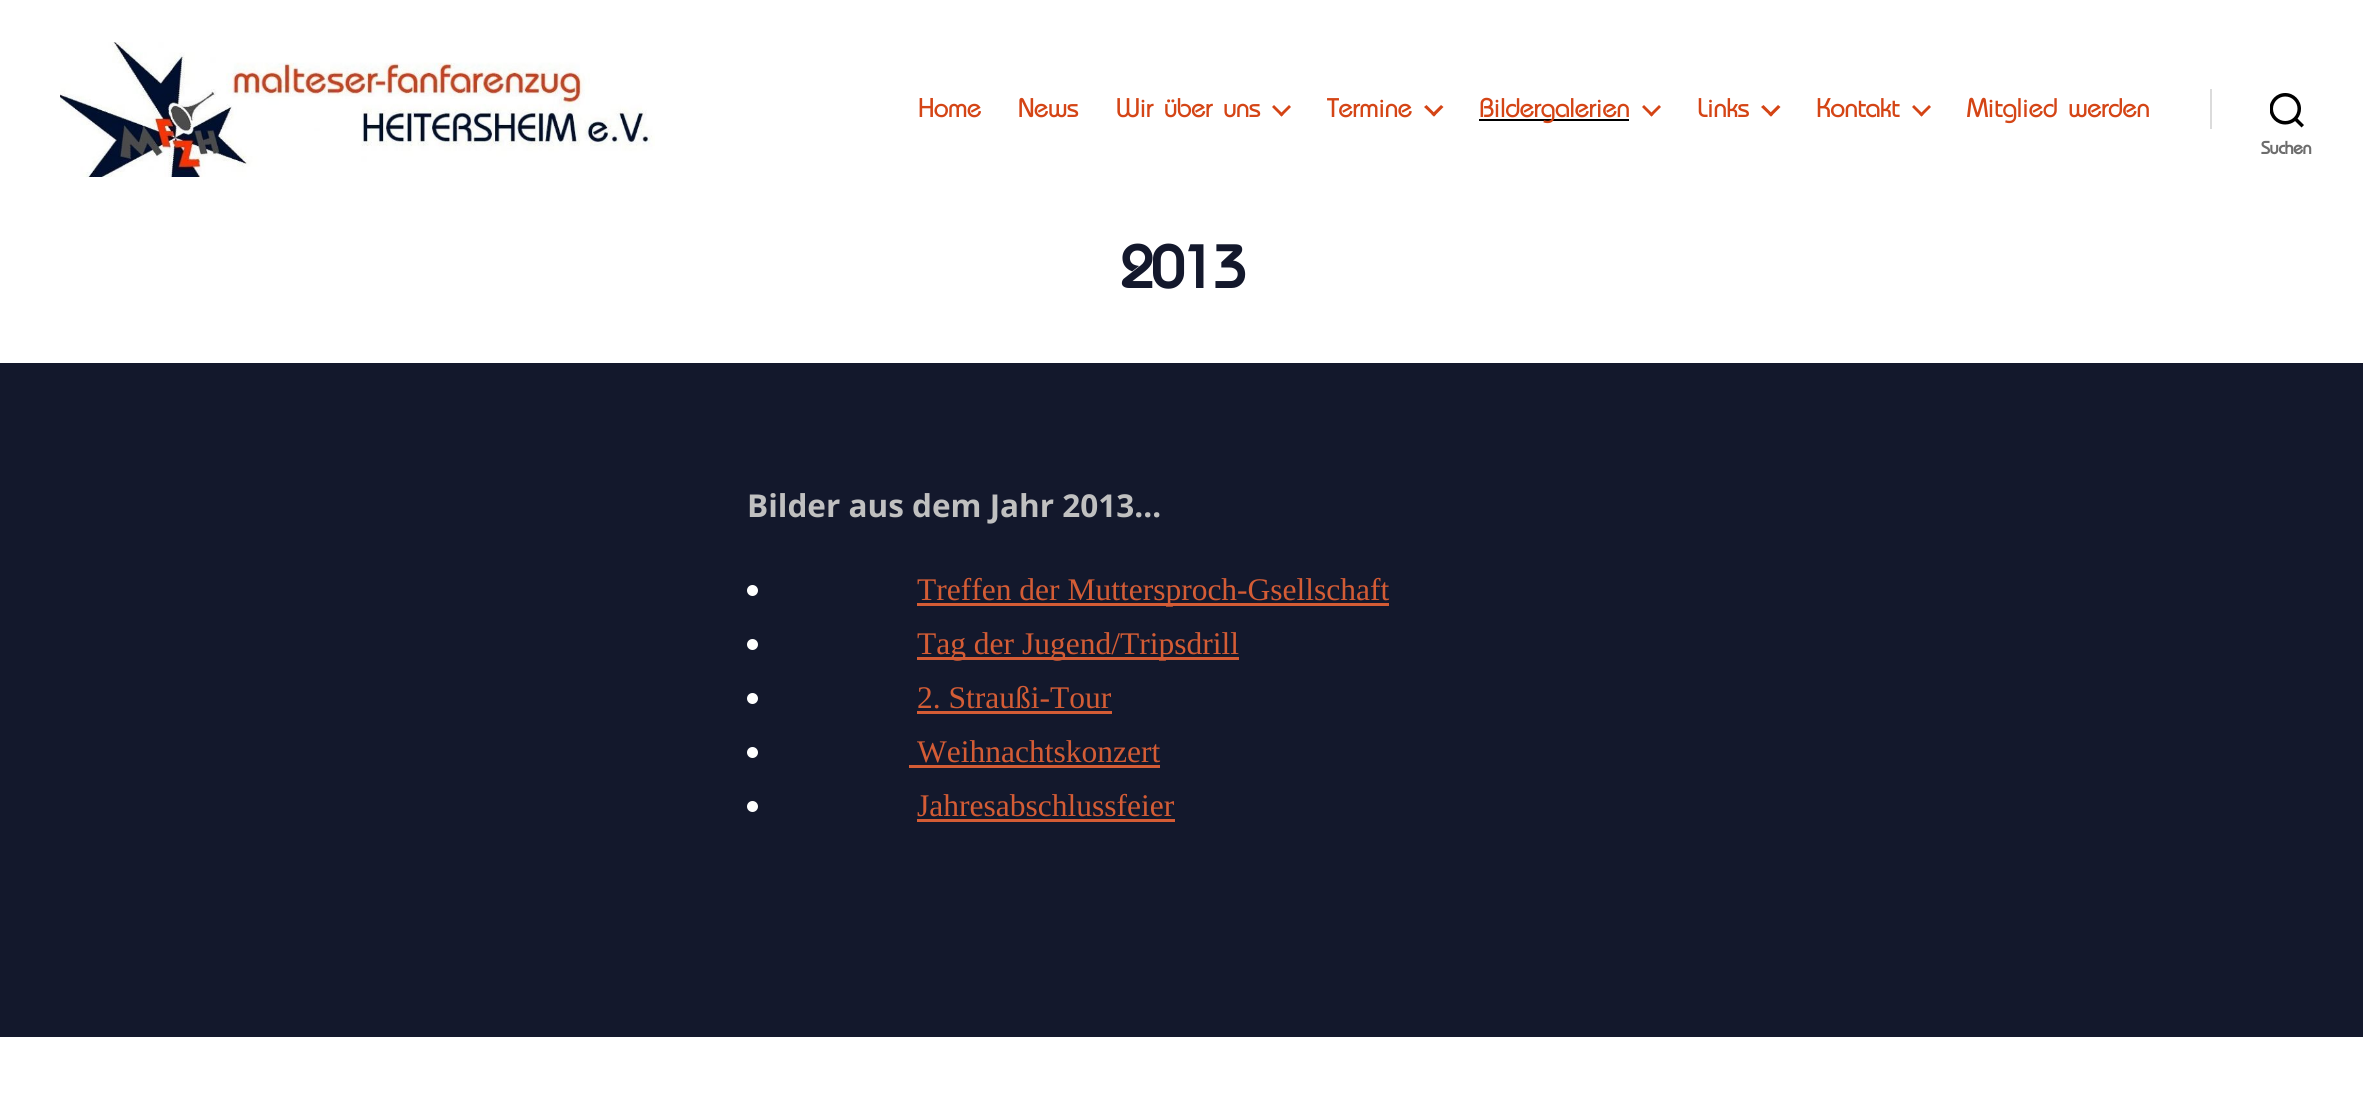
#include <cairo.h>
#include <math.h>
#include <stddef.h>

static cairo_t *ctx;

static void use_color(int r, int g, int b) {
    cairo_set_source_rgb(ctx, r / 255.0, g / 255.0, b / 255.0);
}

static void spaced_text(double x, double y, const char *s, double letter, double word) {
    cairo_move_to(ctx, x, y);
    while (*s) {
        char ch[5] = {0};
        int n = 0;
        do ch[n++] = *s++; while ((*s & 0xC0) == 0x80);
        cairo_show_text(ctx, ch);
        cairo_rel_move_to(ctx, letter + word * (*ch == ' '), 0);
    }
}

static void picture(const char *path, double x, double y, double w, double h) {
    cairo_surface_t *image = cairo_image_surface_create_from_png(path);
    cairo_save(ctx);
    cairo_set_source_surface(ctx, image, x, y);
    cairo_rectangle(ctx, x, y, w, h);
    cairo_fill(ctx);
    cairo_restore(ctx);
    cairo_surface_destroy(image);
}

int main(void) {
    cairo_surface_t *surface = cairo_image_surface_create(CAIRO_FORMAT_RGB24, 2363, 1117);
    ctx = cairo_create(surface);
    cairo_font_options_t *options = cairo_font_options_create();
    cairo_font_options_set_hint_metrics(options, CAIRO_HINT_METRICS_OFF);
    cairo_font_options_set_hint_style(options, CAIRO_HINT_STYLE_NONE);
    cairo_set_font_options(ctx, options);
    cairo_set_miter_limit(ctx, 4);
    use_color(19, 24, 44);
    cairo_paint(ctx);
    use_color(255, 255, 255);
    cairo_rectangle(ctx, 0, 0, 2363, 363);
    cairo_fill(ctx);
    picture("img1.png", 60, 42, 595, 135);
    cairo_select_font_face(ctx, "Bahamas", CAIRO_FONT_SLANT_NORMAL, CAIRO_FONT_WEIGHT_NORMAL);
    cairo_set_font_size(ctx, 27);
    use_color(212, 69, 22);
    spaced_text(918, 117, "Home", -0.75, 0);
    spaced_text(1018, 117, "News", -0.75, 0);
    spaced_text(1116, 117, "Wir über uns", -0.75, 0);
    cairo_new_path(ctx);
    cairo_move_to(ctx, 1272, 107);
    cairo_line_to(ctx, 1274, 105);
    cairo_line_to(ctx, 1283.5, 114.5);
    cairo_line_to(ctx, 1281.5, 116.5);
    cairo_close_path(ctx);
    cairo_fill(ctx);
    cairo_new_path(ctx);
    cairo_move_to(ctx, 1279.5, 114.5);
    cairo_line_to(ctx, 1289, 105);
    cairo_line_to(ctx, 1291, 107);
    cairo_line_to(ctx, 1281.5, 116.5);
    cairo_close_path(ctx);
    cairo_fill(ctx);
    spaced_text(1327, 117, "Termine", -0.75, 0);
    cairo_new_path(ctx);
    cairo_move_to(ctx, 1424, 107);
    cairo_line_to(ctx, 1426.5, 105);
    cairo_line_to(ctx, 1436, 114.5);
    cairo_line_to(ctx, 1434, 116.5);
    cairo_close_path(ctx);
    cairo_fill(ctx);
    cairo_new_path(ctx);
    cairo_move_to(ctx, 1431.5, 114.5);
    cairo_line_to(ctx, 1441, 105);
    cairo_line_to(ctx, 1443.5, 107);
    cairo_line_to(ctx, 1434, 116.5);
    cairo_close_path(ctx);
    cairo_fill(ctx);
    use_color(0, 0, 0);
    cairo_rectangle(ctx, 1479, 119, 150, 2);
    cairo_fill(ctx);
    use_color(212, 69, 22);
    spaced_text(1479, 117, "Bildergalerien", -0.75, 0);
    cairo_new_path(ctx);
    cairo_move_to(ctx, 1642, 107);
    cairo_line_to(ctx, 1644, 105);
    cairo_line_to(ctx, 1653.5, 114.5);
    cairo_line_to(ctx, 1651.5, 116.5);
    cairo_close_path(ctx);
    cairo_fill(ctx);
    cairo_new_path(ctx);
    cairo_move_to(ctx, 1649.5, 114.5);
    cairo_line_to(ctx, 1659, 105);
    cairo_line_to(ctx, 1661, 107);
    cairo_line_to(ctx, 1651.5, 116.5);
    cairo_close_path(ctx);
    cairo_fill(ctx);
    spaced_text(1697, 117, "Links", -0.75, 0);
    cairo_new_path(ctx);
    cairo_move_to(ctx, 1761, 107);
    cairo_line_to(ctx, 1763.5, 105);
    cairo_line_to(ctx, 1773, 114.5);
    cairo_line_to(ctx, 1771, 116.5);
    cairo_close_path(ctx);
    cairo_fill(ctx);
    cairo_new_path(ctx);
    cairo_move_to(ctx, 1768.5, 114.5);
    cairo_line_to(ctx, 1778, 105);
    cairo_line_to(ctx, 1780.5, 107);
    cairo_line_to(ctx, 1771, 116.5);
    cairo_close_path(ctx);
    cairo_fill(ctx);
    spaced_text(1816, 117, "Kontakt", -0.75, 0);
    cairo_new_path(ctx);
    cairo_move_to(ctx, 1912, 107);
    cairo_line_to(ctx, 1914, 105);
    cairo_line_to(ctx, 1923.5, 114.5);
    cairo_line_to(ctx, 1921.5, 116.5);
    cairo_close_path(ctx);
    cairo_fill(ctx);
    cairo_new_path(ctx);
    cairo_move_to(ctx, 1919.5, 114.5);
    cairo_line_to(ctx, 1929, 105);
    cairo_line_to(ctx, 1931, 107);
    cairo_line_to(ctx, 1921.5, 116.5);
    cairo_close_path(ctx);
    cairo_fill(ctx);
    spaced_text(1967, 117, "Mitglied werden", -0.75, 0);
    use_color(219, 219, 219);
    cairo_rectangle(ctx, 2210, 89, 2, 40);
    cairo_fill(ctx);
    picture("img2.png", 2270, 93, 34, 35);
    cairo_select_font_face(ctx, "Bahamas", CAIRO_FONT_SLANT_NORMAL, CAIRO_FONT_WEIGHT_BOLD);
    cairo_set_font_size(ctx, 18);
    use_color(109, 109, 109);
    spaced_text(2261, 154, "Suchen", -0.5, 0);
    cairo_set_font_size(ctx, 60);
    use_color(19, 24, 44);
    spaced_text(1120, 288, "2013", -2.5, 0);
    cairo_select_font_face(ctx, "Open Sans", CAIRO_FONT_SLANT_NORMAL, CAIRO_FONT_WEIGHT_BOLD);
    cairo_set_font_size(ctx, 31.5);
    use_color(192, 192, 192);
    cairo_move_to(ctx, 747, 517);
    cairo_show_text(ctx, "Bilder aus dem Jahr 2013…");
    use_color(255, 255, 255);
    cairo_new_path(ctx);
    cairo_arc(ctx, 752.5, 590.5, 5.5, 0, 2 * M_PI);
    cairo_fill(ctx);
    use_color(212, 92, 53);
    cairo_rectangle(ctx, 917, 603, 472, 3);
    cairo_fill(ctx);
    cairo_select_font_face(ctx, "Liberation Serif", CAIRO_FONT_SLANT_NORMAL, CAIRO_FONT_WEIGHT_NORMAL);
    cairo_move_to(ctx, 917, 600);
    cairo_show_text(ctx, "Treffen der Muttersproch-Gsellschaft");
    use_color(255, 255, 255);
    cairo_new_path(ctx);
    cairo_arc(ctx, 752.5, 644.5, 5.5, 0, 2 * M_PI);
    cairo_fill(ctx);
    use_color(212, 92, 53);
    cairo_rectangle(ctx, 917, 657, 322, 3);
    cairo_fill(ctx);
    cairo_move_to(ctx, 917, 654);
    cairo_show_text(ctx, "Tag der Jugend/Tripsdrill");
    use_color(255, 255, 255);
    cairo_new_path(ctx);
    cairo_arc(ctx, 752.5, 698.5, 5.5, 0, 2 * M_PI);
    cairo_fill(ctx);
    use_color(212, 92, 53);
    cairo_move_to(ctx, 917, 708);
    cairo_show_text(ctx, "2. Straußi-Tour");
    cairo_rectangle(ctx, 917, 711, 195, 3);
    cairo_fill(ctx);
    use_color(255, 255, 255);
    cairo_arc(ctx, 752.5, 752.5, 5.5, 0, 2 * M_PI);
    cairo_fill(ctx);
    use_color(212, 92, 53);
    cairo_move_to(ctx, 917, 762);
    cairo_show_text(ctx, "Weihnachtskonzert");
    cairo_rectangle(ctx, 909, 765, 251, 3);
    cairo_fill(ctx);
    use_color(255, 255, 255);
    cairo_arc(ctx, 752.5, 806.5, 5.5, 0, 2 * M_PI);
    cairo_fill(ctx);
    use_color(212, 92, 53);
    cairo_move_to(ctx, 917, 816);
    cairo_show_text(ctx, "Jahresabschlussfeier");
    cairo_rectangle(ctx, 917, 819, 258, 3);
    cairo_fill(ctx);
    use_color(255, 255, 255);
    cairo_rectangle(ctx, 0, 1037, 2363, 80);
    cairo_fill(ctx);
    cairo_surface_write_to_png(surface, "result.png");
    cairo_font_options_destroy(options);
    cairo_destroy(ctx);
    cairo_surface_destroy(surface);
    return 0;
}
